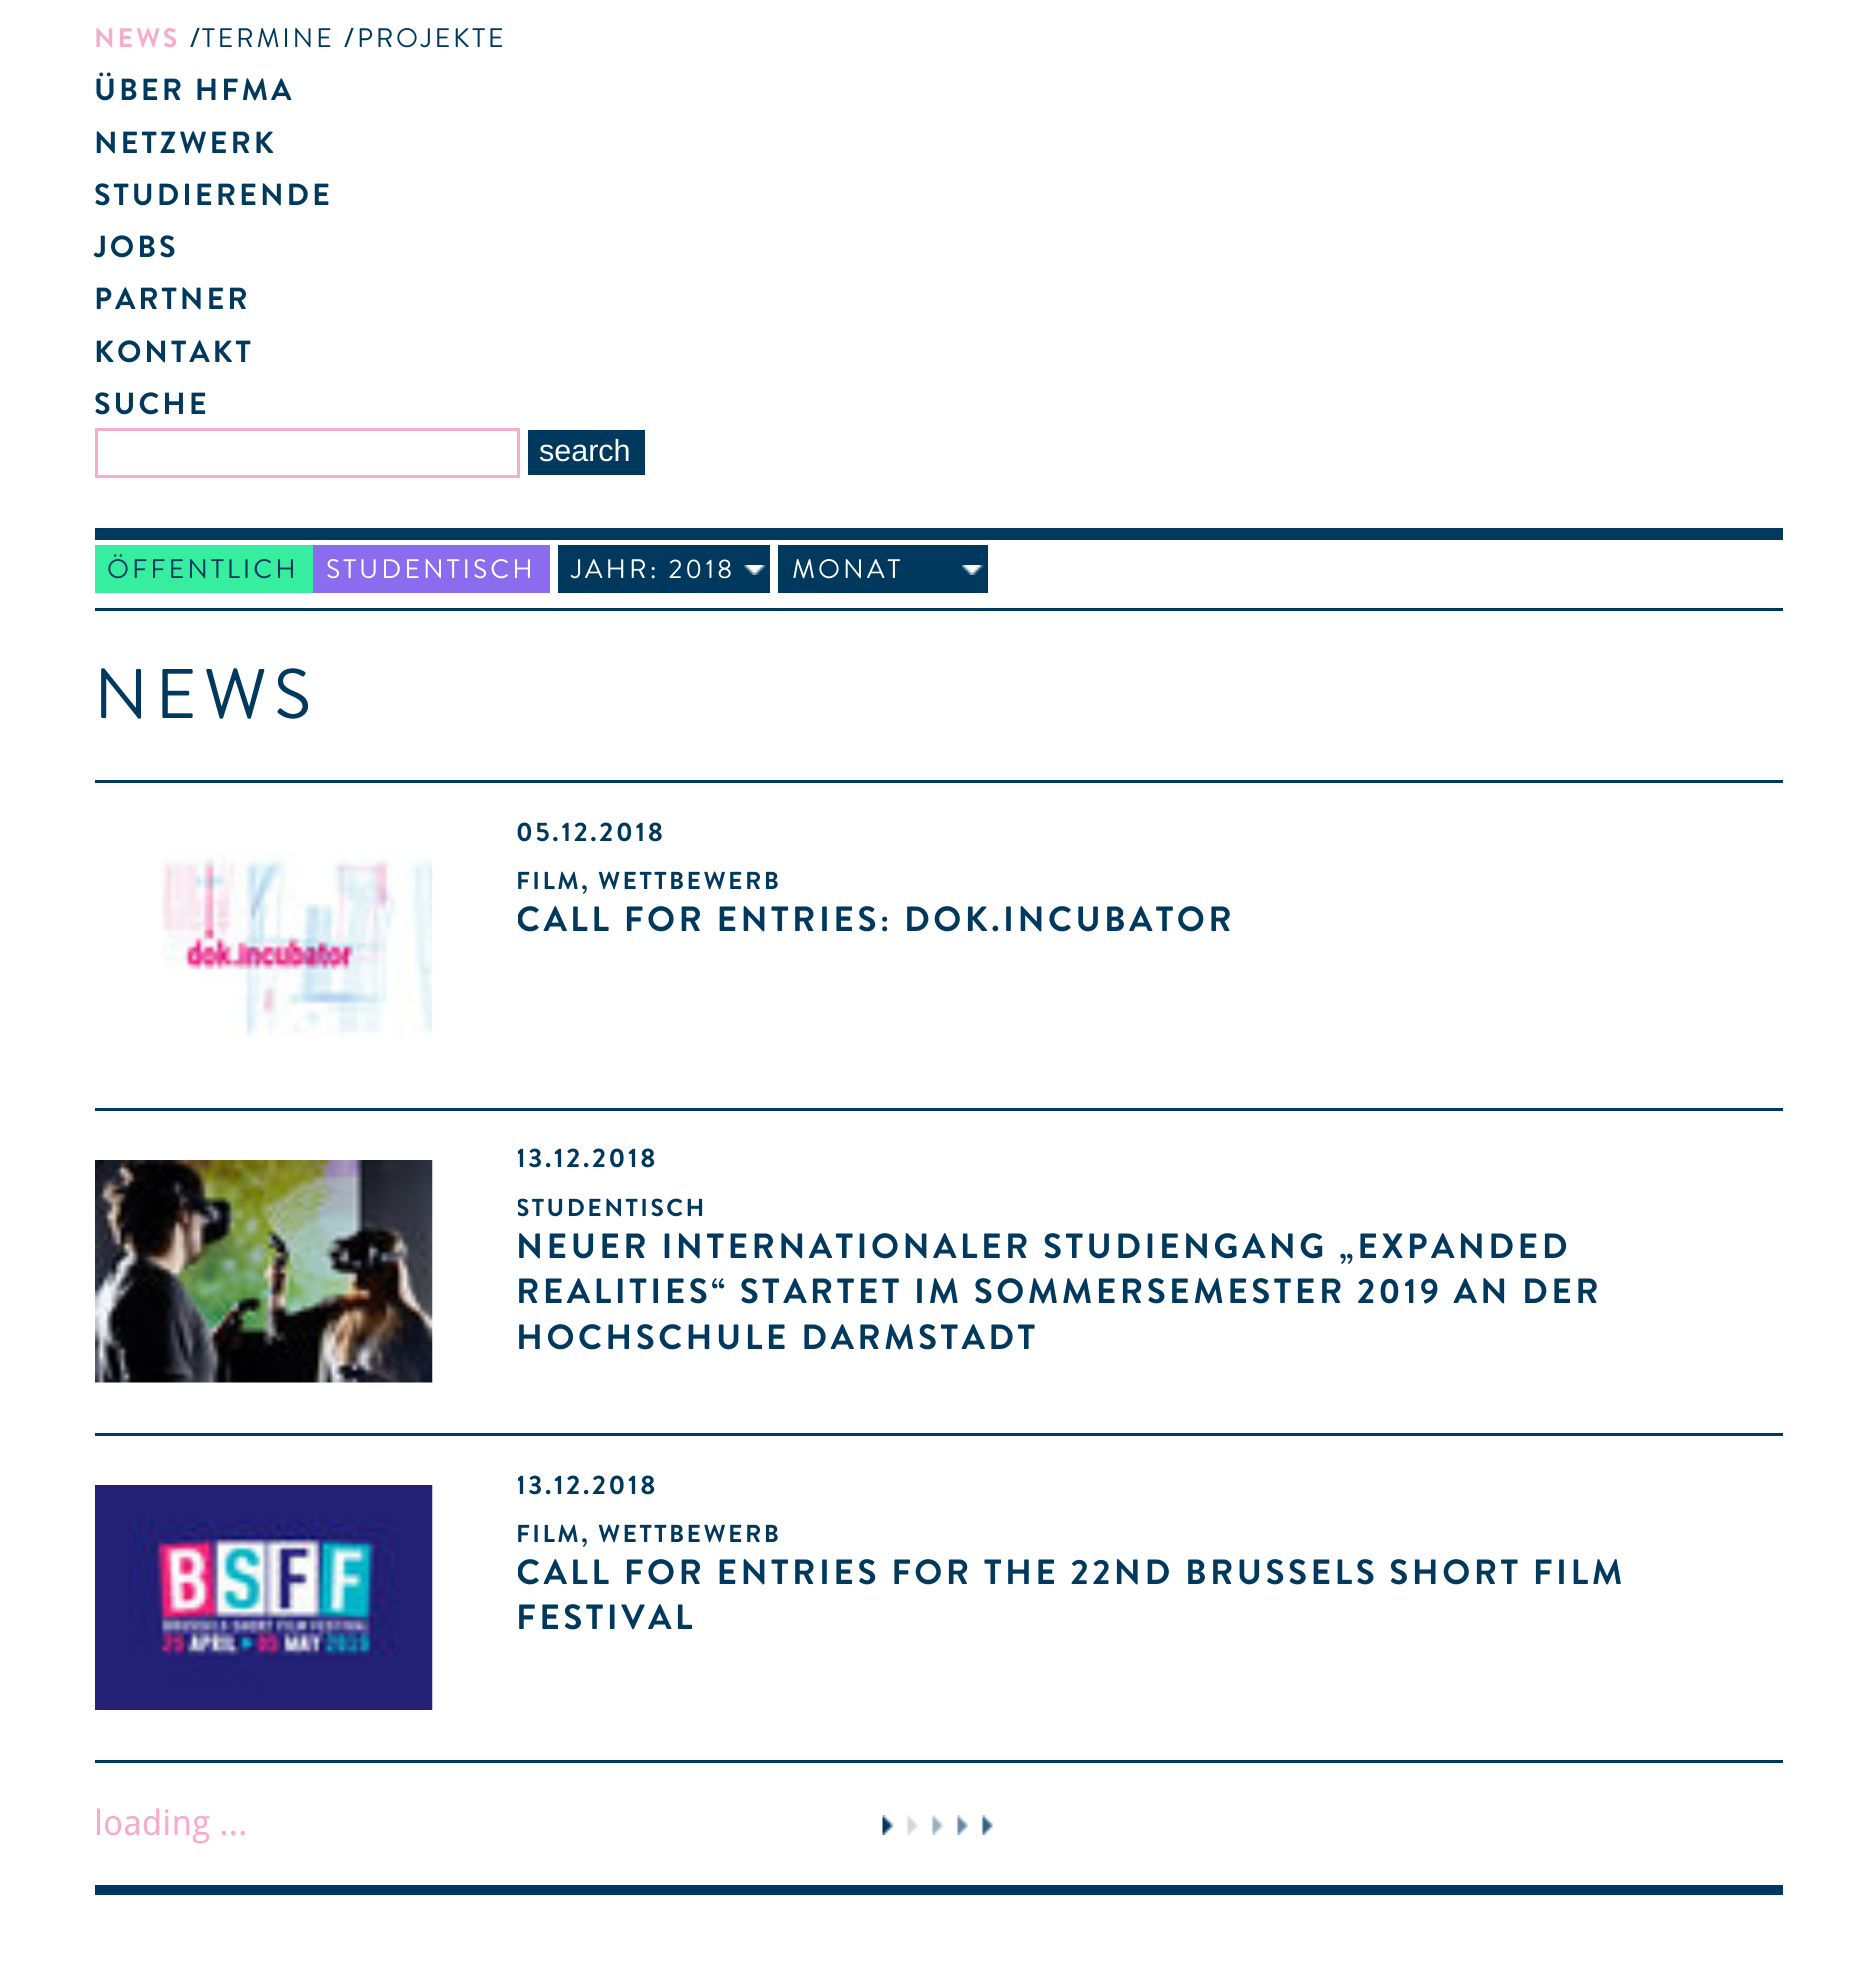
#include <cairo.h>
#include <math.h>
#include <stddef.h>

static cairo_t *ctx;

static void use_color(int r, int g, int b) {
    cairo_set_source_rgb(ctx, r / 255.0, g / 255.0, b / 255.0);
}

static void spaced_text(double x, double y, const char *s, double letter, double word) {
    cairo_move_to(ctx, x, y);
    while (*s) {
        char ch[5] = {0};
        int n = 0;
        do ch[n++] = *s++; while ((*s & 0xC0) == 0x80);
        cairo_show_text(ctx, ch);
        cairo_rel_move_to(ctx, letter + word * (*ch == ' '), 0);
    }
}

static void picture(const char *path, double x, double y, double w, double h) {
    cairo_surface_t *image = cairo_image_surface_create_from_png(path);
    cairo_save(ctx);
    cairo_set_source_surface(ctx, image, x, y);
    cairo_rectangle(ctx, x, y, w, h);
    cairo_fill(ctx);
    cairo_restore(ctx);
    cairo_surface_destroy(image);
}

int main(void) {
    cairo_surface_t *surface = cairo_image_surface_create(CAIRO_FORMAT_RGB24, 1876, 1972);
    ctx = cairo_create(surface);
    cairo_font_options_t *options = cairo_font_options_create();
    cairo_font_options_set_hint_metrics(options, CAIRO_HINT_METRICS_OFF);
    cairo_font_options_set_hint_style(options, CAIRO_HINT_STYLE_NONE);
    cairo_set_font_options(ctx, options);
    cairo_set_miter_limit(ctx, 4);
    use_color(255, 255, 255);
    cairo_paint(ctx);
    use_color(0, 57, 93);
    cairo_rectangle(ctx, 95, 528, 1688, 12);
    cairo_fill(ctx);
    cairo_select_font_face(ctx, "Brandon Grotesque", CAIRO_FONT_SLANT_NORMAL, CAIRO_FONT_WEIGHT_NORMAL);
    cairo_set_font_size(ctx, 26.75);
    use_color(247, 172, 201);
    spaced_text(94, 47, "NEWS", 2.75, 0);
    cairo_select_font_face(ctx, "Droid Sans", CAIRO_FONT_SLANT_NORMAL, CAIRO_FONT_WEIGHT_NORMAL);
    use_color(0, 57, 93);
    cairo_move_to(ctx, 190, 47);
    cairo_show_text(ctx, "/");
    cairo_select_font_face(ctx, "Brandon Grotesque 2", CAIRO_FONT_SLANT_NORMAL, CAIRO_FONT_WEIGHT_NORMAL);
    spaced_text(202, 47, "TERMINE", 2.75, 0);
    cairo_select_font_face(ctx, "Droid Sans", CAIRO_FONT_SLANT_NORMAL, CAIRO_FONT_WEIGHT_NORMAL);
    cairo_move_to(ctx, 344, 47);
    cairo_show_text(ctx, "/");
    cairo_select_font_face(ctx, "Brandon Grotesque 2", CAIRO_FONT_SLANT_NORMAL, CAIRO_FONT_WEIGHT_NORMAL);
    spaced_text(357, 47, "PROJEKTE", 2.75, 0);
    cairo_select_font_face(ctx, "Brandon Grotesque", CAIRO_FONT_SLANT_NORMAL, CAIRO_FONT_WEIGHT_NORMAL);
    cairo_set_font_size(ctx, 30.5);
    spaced_text(94, 100, "ÜBER HFMA", 3, 0);
    spaced_text(94, 153, "NETZWERK", 3, 0);
    spaced_text(94, 205, "STUDIERENDE", 3, 0);
    spaced_text(94, 257, "JOBS", 3, 0);
    spaced_text(94, 309, "PARTNER", 3, 0);
    spaced_text(94, 362, "KONTAKT", 3, 0);
    spaced_text(94, 414, "SUCHE", 3, 0);
    cairo_rectangle(ctx, 96.5, 429.5, 422, 47);
    use_color(247, 172, 201);
    cairo_set_line_width(ctx, 3);
    cairo_stroke(ctx);
    use_color(0, 57, 93);
    cairo_rectangle(ctx, 528, 430, 117, 45);
    cairo_fill(ctx);
    cairo_select_font_face(ctx, "Liberation Sans", CAIRO_FONT_SLANT_NORMAL, CAIRO_FONT_WEIGHT_NORMAL);
    use_color(255, 255, 255);
    cairo_move_to(ctx, 539, 461);
    cairo_show_text(ctx, "search");
    use_color(0, 57, 93);
    cairo_rectangle(ctx, 95, 1885, 1688, 10);
    cairo_fill(ctx);
    cairo_rectangle(ctx, 95, 608, 1688, 3);
    cairo_fill(ctx);
    use_color(55, 237, 160);
    cairo_rectangle(ctx, 95, 545, 218, 48);
    cairo_fill(ctx);
    cairo_select_font_face(ctx, "Brandon Grotesque 2", CAIRO_FONT_SLANT_NORMAL, CAIRO_FONT_WEIGHT_NORMAL);
    cairo_set_font_size(ctx, 26.75);
    use_color(0, 57, 93);
    spaced_text(107, 578, "ÖFFENTLICH", 3, 0);
    use_color(139, 108, 238);
    cairo_rectangle(ctx, 313, 545, 237, 48);
    cairo_fill(ctx);
    use_color(255, 255, 255);
    spaced_text(326, 578, "STUDENTISCH", 3, 0);
    use_color(0, 57, 93);
    cairo_rectangle(ctx, 558, 545, 212, 48);
    cairo_fill(ctx);
    picture("img1.png", 744, 565, 22, 10);
    use_color(255, 255, 255);
    spaced_text(571, 578, "JAHR: 2018", 3, 0);
    use_color(0, 57, 93);
    cairo_rectangle(ctx, 778, 545, 210, 48);
    cairo_fill(ctx);
    picture("img2.png", 961, 565, 23, 10);
    use_color(255, 255, 255);
    spaced_text(792, 578, "MONAT", 3, 0);
    use_color(0, 57, 93);
    cairo_rectangle(ctx, 95, 780, 1688, 3);
    cairo_fill(ctx);
    cairo_set_font_size(ctx, 70);
    spaced_text(94, 718, "NEWS", 7, 0);
    cairo_rectangle(ctx, 95, 1108, 1688, 3);
    cairo_fill(ctx);
    picture("img3.png", 161, 851, 272, 187);
    cairo_select_font_face(ctx, "Brandon Grotesque", CAIRO_FONT_SLANT_NORMAL, CAIRO_FONT_WEIGHT_NORMAL);
    cairo_set_font_size(ctx, 26.75);
    spaced_text(516, 841, "05.12.2018", 2.75, 0);
    cairo_set_font_size(ctx, 24.5);
    spaced_text(516, 889, "FILM, WETTBEWERB", 2.5, 0);
    cairo_save(ctx);
    cairo_rectangle(ctx, 518, 783, 1265, 185);
    cairo_clip(ctx);
    cairo_set_font_size(ctx, 35);
    spaced_text(516, 931, "CALL FOR ENTRIES: DOK.INCUBATOR", 3.5, 0);
    cairo_restore(ctx);
    cairo_rectangle(ctx, 95, 1433, 1688, 3);
    cairo_fill(ctx);
    picture("img4.png", 95, 1160, 338, 223);
    cairo_save(ctx);
    cairo_rectangle(ctx, 518, 1110, 1265, 275);
    cairo_clip(ctx);
    cairo_set_font_size(ctx, 26.75);
    spaced_text(516, 1167, "13.12.2018", 2.75, 0);
    cairo_set_font_size(ctx, 24.5);
    spaced_text(516, 1216, "STUDENTISCH", 2.5, 0);
    cairo_restore(ctx);
    cairo_set_font_size(ctx, 35);
    spaced_text(516, 1258, "NEUER INTERNATIONALER STUDIENGANG „EXPANDED", 3.5, 0);
    spaced_text(516, 1303, "REALITIES“ STARTET IM SOMMERSEMESTER 2019 AN DER", 3.5, 0);
    spaced_text(516, 1349, "HOCHSCHULE DARMSTADT", 3.5, 0);
    cairo_rectangle(ctx, 95, 1760, 1688, 3);
    cairo_fill(ctx);
    picture("img5.png", 95, 1485, 338, 225);
    cairo_save(ctx);
    cairo_rectangle(ctx, 518, 1435, 1265, 230);
    cairo_clip(ctx);
    cairo_set_font_size(ctx, 26.75);
    spaced_text(516, 1494, "13.12.2018", 2.75, 0);
    cairo_restore(ctx);
    cairo_set_font_size(ctx, 24.5);
    spaced_text(516, 1542, "FILM, WETTBEWERB", 2.5, 0);
    cairo_save(ctx);
    cairo_rectangle(ctx, 518, 1435, 1265, 230);
    cairo_clip(ctx);
    cairo_set_font_size(ctx, 35);
    spaced_text(516, 1584, "CALL FOR ENTRIES FOR THE 22ND BRUSSELS SHORT FILM", 3.5, 0);
    cairo_restore(ctx);
    cairo_set_font_size(ctx, 35);
    spaced_text(516, 1629, "FESTIVAL", 3.5, 0);
    picture("img6.png", 882, 1815, 111, 20);
    cairo_select_font_face(ctx, "Droid Sans", CAIRO_FONT_SLANT_NORMAL, CAIRO_FONT_WEIGHT_NORMAL);
    use_color(247, 172, 201);
    cairo_move_to(ctx, 94, 1835);
    cairo_show_text(ctx, "loading ...");
    cairo_surface_write_to_png(surface, "result.png");
    cairo_font_options_destroy(options);
    cairo_destroy(ctx);
    cairo_surface_destroy(surface);
    return 0;
}
